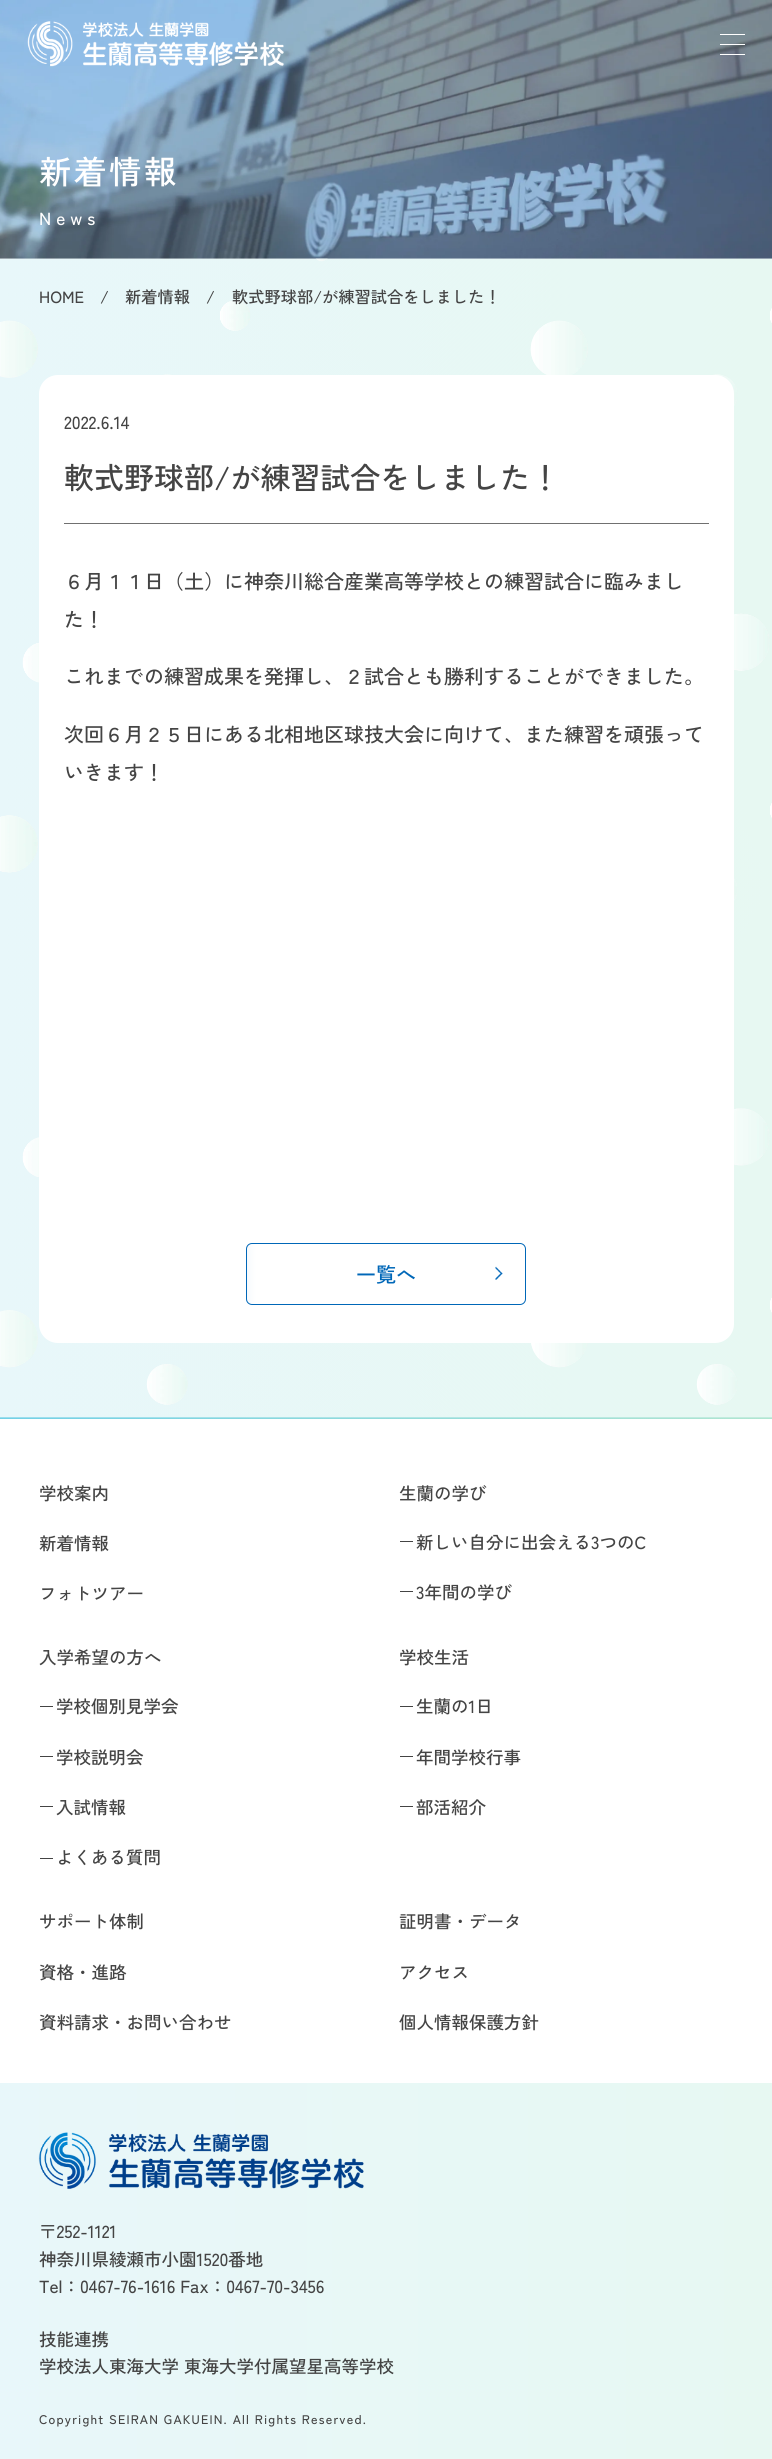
#include <cairo.h>
#include <math.h>
#include <stddef.h>

static cairo_t *ctx;

static void use_color(int r, int g, int b) {
    cairo_set_source_rgb(ctx, r / 255.0, g / 255.0, b / 255.0);
}

static void spaced_text(double x, double y, const char *s, double letter, double word) {
    cairo_move_to(ctx, x, y);
    while (*s) {
        char ch[5] = {0};
        int n = 0;
        do ch[n++] = *s++; while ((*s & 0xC0) == 0x80);
        cairo_show_text(ctx, ch);
        cairo_rel_move_to(ctx, letter + word * (*ch == ' '), 0);
    }
}

static void round_rect(double x, double y, double w, double h, double r) {
    cairo_new_sub_path(ctx);
    cairo_arc(ctx, x + w - r, y + h - r, r, 0, M_PI / 2);
    cairo_arc(ctx, x + r, y + h - r, r, M_PI / 2, M_PI);
    cairo_arc(ctx, x + r, y + r, r, M_PI, 1.5 * M_PI);
    cairo_arc(ctx, x + w - r, y + r, r, 1.5 * M_PI, 2 * M_PI);
    cairo_close_path(ctx);
}

static void picture(const char *path, double x, double y, double w, double h) {
    cairo_surface_t *image = cairo_image_surface_create_from_png(path);
    cairo_save(ctx);
    cairo_set_source_surface(ctx, image, x, y);
    cairo_rectangle(ctx, x, y, w, h);
    cairo_fill(ctx);
    cairo_restore(ctx);
    cairo_surface_destroy(image);
}

int main(void) {
    cairo_surface_t *surface = cairo_image_surface_create(CAIRO_FORMAT_RGB24, 772, 2459);
    ctx = cairo_create(surface);
    cairo_font_options_t *options = cairo_font_options_create();
    cairo_font_options_set_hint_metrics(options, CAIRO_HINT_METRICS_OFF);
    cairo_font_options_set_hint_style(options, CAIRO_HINT_STYLE_NONE);
    cairo_set_font_options(ctx, options);
    cairo_set_miter_limit(ctx, 4);
    cairo_pattern_t *gradient;
    use_color(255, 255, 255);
    cairo_paint(ctx);
    picture("img2.png", 0, 0, 772, 259);
    picture("img1.png", 27, 21, 257, 46);
    use_color(255, 255, 255);
    cairo_rectangle(ctx, 720, 34, 25, 1);
    cairo_fill(ctx);
    cairo_rectangle(ctx, 720, 44, 25, 1);
    cairo_fill(ctx);
    cairo_rectangle(ctx, 720, 54, 25, 1);
    cairo_fill(ctx);
    cairo_select_font_face(ctx, "Zen Kaku Gothic New Medium", CAIRO_FONT_SLANT_NORMAL, CAIRO_FONT_WEIGHT_NORMAL);
    cairo_set_font_size(ctx, 32.5);
    spaced_text(39, 184, "新着情報", 2.5, 0);
    cairo_set_font_size(ctx, 17.5);
    spaced_text(39, 225, "News", 5, 0);
    picture("img3.png", 0, 258, 772, 1160);
    cairo_set_font_size(ctx, 16.25);
    use_color(68, 68, 68);
    cairo_move_to(ctx, 39, 303);
    cairo_show_text(ctx, "HOME");
    cairo_move_to(ctx, 100, 303);
    cairo_show_text(ctx, "/");
    cairo_move_to(ctx, 125, 303);
    cairo_show_text(ctx, "新着情報");
    cairo_move_to(ctx, 206, 303);
    cairo_show_text(ctx, "/");
    cairo_move_to(ctx, 232, 303);
    cairo_show_text(ctx, "軟式野球部/が練習試合をしました！");
    use_color(255, 255, 255);
    round_rect(39, 375, 695, 968, 19);
    cairo_fill(ctx);
    cairo_set_font_size(ctx, 17.5);
    use_color(68, 68, 68);
    cairo_move_to(ctx, 64, 429);
    cairo_show_text(ctx, "2022.6.14");
    use_color(112, 112, 112);
    cairo_rectangle(ctx, 64, 523, 645, 1);
    cairo_fill(ctx);
    cairo_set_font_size(ctx, 30);
    use_color(68, 68, 68);
    cairo_move_to(ctx, 64, 489);
    cairo_show_text(ctx, "軟式野球部/が練習試合をしました！");
    cairo_set_font_size(ctx, 20);
    cairo_move_to(ctx, 64, 589);
    cairo_show_text(ctx, "６月１１日（土）に神奈川総合産業高等学校との練習試合に臨みまし");
    cairo_move_to(ctx, 64, 627);
    cairo_show_text(ctx, "た！");
    cairo_move_to(ctx, 64, 684);
    cairo_show_text(ctx, "これまでの練習成果を発揮し、２試合とも勝利することができました。");
    cairo_move_to(ctx, 64, 742);
    cairo_show_text(ctx, "次回６月２５日にある北相地区球技大会に向けて、また練習を頑張って");
    cairo_move_to(ctx, 64, 780);
    cairo_show_text(ctx, "いきます！");
    gradient = cairo_pattern_create_linear(-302, 1274, 531, 1274);
    cairo_pattern_add_color_stop_rgba(gradient, 0, 0, 0.404, 0.722, 1);
    cairo_pattern_add_color_stop_rgba(gradient, 0.33, 0, 0.404, 0.722, 1);
    cairo_pattern_add_color_stop_rgba(gradient, 0.67, 1, 1, 1, 1);
    cairo_pattern_add_color_stop_rgba(gradient, 1, 1, 1, 1, 1);
    cairo_set_source(ctx, gradient);
    cairo_pattern_destroy(gradient);
    round_rect(246.5, 1243.5, 279, 61, 5.5);
    cairo_fill_preserve(ctx);
    use_color(0, 103, 184);
    cairo_set_line_width(ctx, 1);
    cairo_stroke(ctx);
    cairo_move_to(ctx, 356, 1282);
    cairo_show_text(ctx, "一覧へ");
    picture("img4.png", 495, 1266, 8, 14);
    picture("img5.png", 0, 1417, 772, 2);
    cairo_set_font_size(ctx, 17.5);
    use_color(68, 68, 68);
    cairo_move_to(ctx, 39, 1500);
    cairo_show_text(ctx, "学校案内");
    cairo_move_to(ctx, 39, 1550);
    cairo_show_text(ctx, "新着情報");
    cairo_move_to(ctx, 39, 1600);
    cairo_show_text(ctx, "フォトツアー");
    cairo_move_to(ctx, 399, 1500);
    cairo_show_text(ctx, "生蘭の学び");
    cairo_rectangle(ctx, 400, 1541, 13, 1);
    cairo_fill(ctx);
    cairo_move_to(ctx, 416, 1549);
    cairo_show_text(ctx, "新しい自分に出会える3つのC");
    cairo_rectangle(ctx, 400, 1591, 13, 1);
    cairo_fill(ctx);
    cairo_move_to(ctx, 416, 1599);
    cairo_show_text(ctx, "3年間の学び");
    cairo_move_to(ctx, 39, 1664);
    cairo_show_text(ctx, "入学希望の方へ");
    cairo_rectangle(ctx, 40, 1706, 13, 1);
    cairo_fill(ctx);
    cairo_move_to(ctx, 56, 1713);
    cairo_show_text(ctx, "学校個別見学会");
    cairo_rectangle(ctx, 40, 1756, 13, 1);
    cairo_fill(ctx);
    cairo_move_to(ctx, 56, 1764);
    cairo_show_text(ctx, "学校説明会");
    cairo_rectangle(ctx, 40, 1806, 13, 1);
    cairo_fill(ctx);
    cairo_move_to(ctx, 56, 1814);
    cairo_show_text(ctx, "入試情報");
    cairo_rectangle(ctx, 40, 1858, 13, 1);
    cairo_fill(ctx);
    cairo_move_to(ctx, 56, 1864);
    cairo_show_text(ctx, "よくある質問");
    cairo_move_to(ctx, 399, 1664);
    cairo_show_text(ctx, "学校生活");
    cairo_rectangle(ctx, 400, 1706, 13, 1);
    cairo_fill(ctx);
    cairo_move_to(ctx, 416, 1713);
    cairo_show_text(ctx, "生蘭の1日");
    cairo_rectangle(ctx, 400, 1756, 13, 1);
    cairo_fill(ctx);
    cairo_move_to(ctx, 416, 1764);
    cairo_show_text(ctx, "年間学校行事");
    cairo_rectangle(ctx, 400, 1806, 13, 1);
    cairo_fill(ctx);
    cairo_move_to(ctx, 416, 1814);
    cairo_show_text(ctx, "部活紹介");
    cairo_move_to(ctx, 39, 1928);
    cairo_show_text(ctx, "サポート体制");
    cairo_move_to(ctx, 39, 1979);
    cairo_show_text(ctx, "資格・進路");
    cairo_move_to(ctx, 39, 2029);
    cairo_show_text(ctx, "資料請求・お問い合わせ");
    cairo_move_to(ctx, 399, 1928);
    cairo_show_text(ctx, "証明書・データ");
    cairo_move_to(ctx, 399, 1979);
    cairo_show_text(ctx, "アクセス");
    cairo_move_to(ctx, 399, 2029);
    cairo_show_text(ctx, "個人情報保護方針");
    gradient = cairo_pattern_create_linear(0, 2283, 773, 2283);
    cairo_pattern_add_color_stop_rgba(gradient, 0, 0.91, 0.969, 0.98, 1);
    cairo_pattern_add_color_stop_rgba(gradient, 1, 0.906, 0.973, 0.949, 1);
    cairo_set_source(ctx, gradient);
    cairo_pattern_destroy(gradient);
    cairo_rectangle(ctx, 0, 2083, 772, 376);
    cairo_fill(ctx);
    picture("img6.png", 38, 2132, 326, 57);
    use_color(68, 68, 68);
    cairo_move_to(ctx, 39, 2238);
    cairo_show_text(ctx, "〒252-1121");
    cairo_move_to(ctx, 39, 2266);
    cairo_show_text(ctx, "神奈川県綾瀬市小園1520番地");
    cairo_move_to(ctx, 39, 2293);
    cairo_show_text(ctx, "Tel：0467-76-1616 Fax：0467-70-3456");
    cairo_move_to(ctx, 39, 2346);
    cairo_show_text(ctx, "技能連携");
    cairo_move_to(ctx, 39, 2373);
    cairo_show_text(ctx, "学校法人東海大学 東海大学付属望星高等学校");
    cairo_set_font_size(ctx, 12.5);
    spaced_text(39, 2424, "Copyright SEIRAN GAKUEIN. All Rights Reserved.", 1.2, 0);
    cairo_surface_write_to_png(surface, "result.png");
    cairo_font_options_destroy(options);
    cairo_destroy(ctx);
    cairo_surface_destroy(surface);
    return 0;
}
